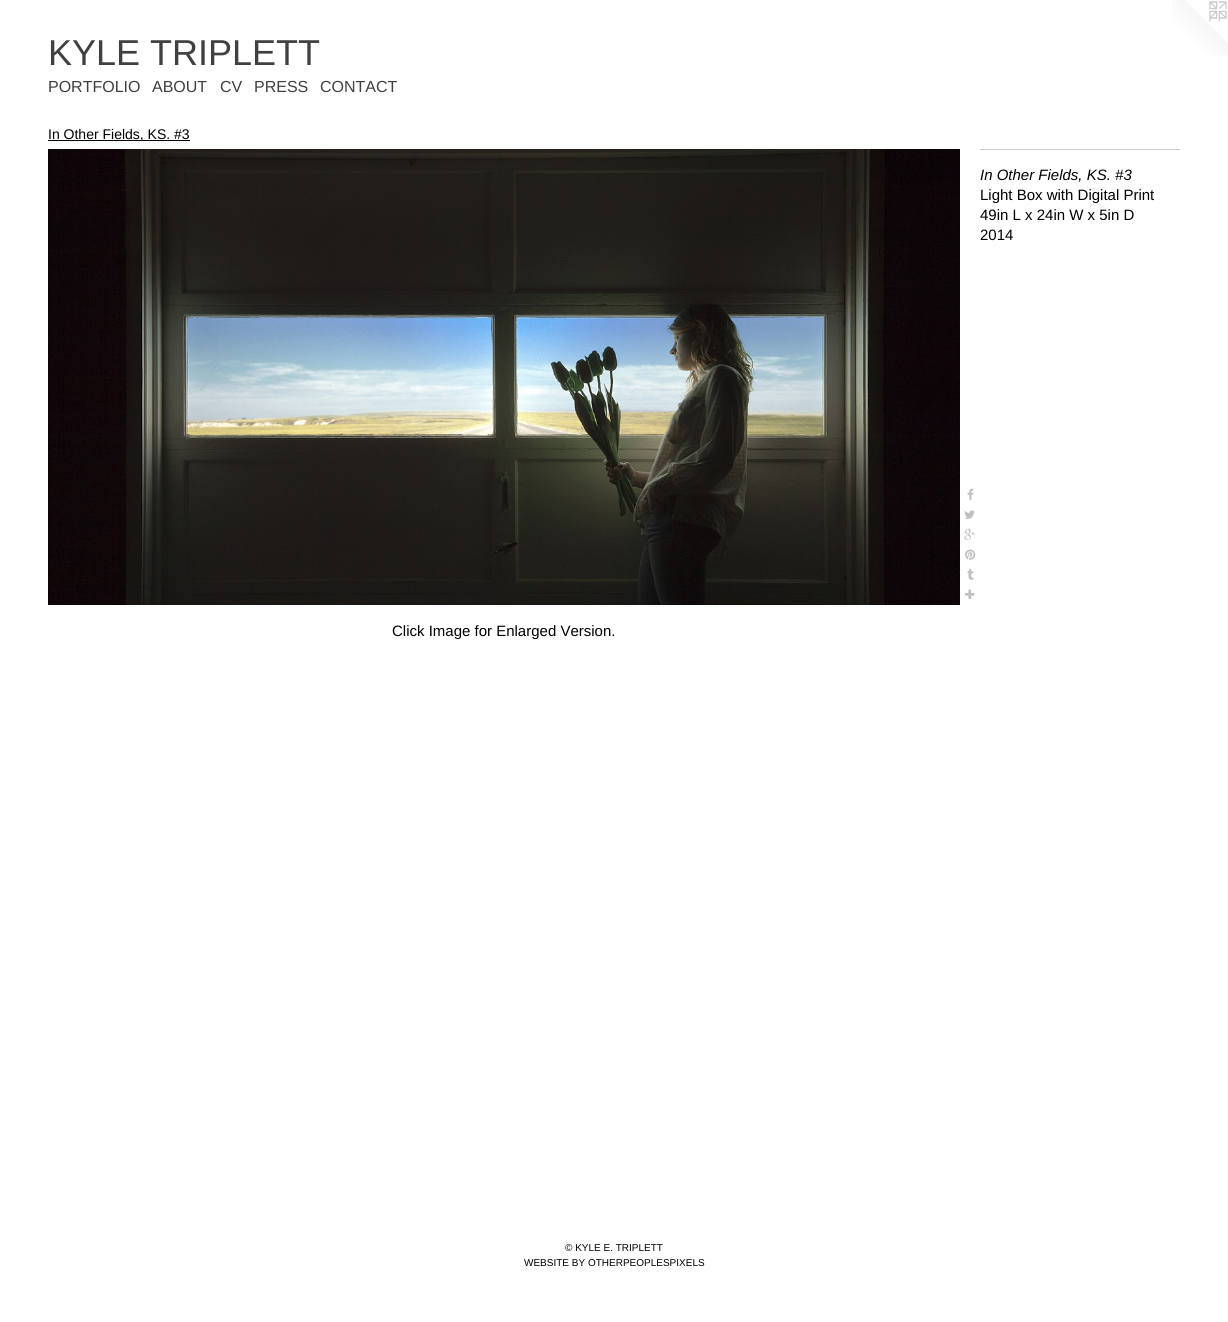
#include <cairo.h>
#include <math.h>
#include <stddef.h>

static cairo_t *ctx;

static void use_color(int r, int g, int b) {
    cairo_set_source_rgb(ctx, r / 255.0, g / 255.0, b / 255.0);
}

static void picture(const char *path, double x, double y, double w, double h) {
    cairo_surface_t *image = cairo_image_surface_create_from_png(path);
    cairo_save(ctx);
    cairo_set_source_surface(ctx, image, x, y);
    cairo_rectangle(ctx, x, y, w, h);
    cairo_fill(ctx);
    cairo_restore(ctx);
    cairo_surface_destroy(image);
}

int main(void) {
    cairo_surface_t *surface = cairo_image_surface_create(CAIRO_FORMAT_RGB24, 1228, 1322);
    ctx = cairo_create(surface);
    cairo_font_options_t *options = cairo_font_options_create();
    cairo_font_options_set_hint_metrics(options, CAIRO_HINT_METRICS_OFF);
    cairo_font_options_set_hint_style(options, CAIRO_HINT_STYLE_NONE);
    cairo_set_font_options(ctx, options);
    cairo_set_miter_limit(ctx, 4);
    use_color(255, 255, 255);
    cairo_paint(ctx);
    cairo_select_font_face(ctx, "Arimo", CAIRO_FONT_SLANT_NORMAL, CAIRO_FONT_WEIGHT_NORMAL);
    cairo_set_font_size(ctx, 36);
    use_color(64, 64, 64);
    cairo_move_to(ctx, 48, 65);
    cairo_show_text(ctx, "KYLE TRIPLETT");
    picture("img1.png", 1172, 0, 56, 56);
    cairo_set_font_size(ctx, 16);
    cairo_move_to(ctx, 48, 92);
    cairo_show_text(ctx, "PORTFOLIO");
    cairo_move_to(ctx, 152, 92);
    cairo_show_text(ctx, "ABOUT");
    cairo_move_to(ctx, 220, 92);
    cairo_show_text(ctx, "CV");
    cairo_move_to(ctx, 254, 92);
    cairo_show_text(ctx, "PRESS");
    cairo_move_to(ctx, 320, 92);
    cairo_show_text(ctx, "CONTACT");
    use_color(0, 0, 0);
    cairo_rectangle(ctx, 48, 140, 142, 1);
    cairo_fill(ctx);
    cairo_set_font_size(ctx, 14);
    cairo_move_to(ctx, 48, 139);
    cairo_show_text(ctx, "In Other Fields, KS. #3");
    picture("img2.png", 48, 149, 912, 456);
    picture("img3.png", 967, 488, 7, 12);
    picture("img4.png", 964, 510, 11, 9);
    picture("img5.png", 964, 528, 11, 12);
    picture("img6.png", 965, 549, 11, 11);
    picture("img7.png", 967, 568, 7, 12);
    picture("img8.png", 965, 589, 10, 10);
    use_color(204, 204, 204);
    cairo_rectangle(ctx, 980, 149, 200, 1);
    cairo_fill(ctx);
    cairo_select_font_face(ctx, "Liberation Sans", CAIRO_FONT_SLANT_ITALIC, CAIRO_FONT_WEIGHT_NORMAL);
    cairo_set_font_size(ctx, 15);
    use_color(0, 0, 0);
    cairo_move_to(ctx, 980, 180);
    cairo_show_text(ctx, "In Other Fields, KS. #3");
    cairo_select_font_face(ctx, "Liberation Sans", CAIRO_FONT_SLANT_NORMAL, CAIRO_FONT_WEIGHT_NORMAL);
    cairo_move_to(ctx, 980, 200);
    cairo_show_text(ctx, "Light Box with Digital Print");
    cairo_move_to(ctx, 980, 220);
    cairo_show_text(ctx, "49in L x 24in W x 5in D");
    cairo_move_to(ctx, 980, 240);
    cairo_show_text(ctx, "2014");
    cairo_move_to(ctx, 392, 636);
    cairo_show_text(ctx, "Click Image for Enlarged Version.");
    cairo_set_font_size(ctx, 10);
    cairo_move_to(ctx, 565, 1251);
    cairo_show_text(ctx, "© KYLE E. TRIPLETT");
    cairo_move_to(ctx, 524, 1266);
    cairo_show_text(ctx, "WEBSITE BY OTHERPEOPLESPIXELS");
    cairo_surface_write_to_png(surface, "result.png");
    cairo_font_options_destroy(options);
    cairo_destroy(ctx);
    cairo_surface_destroy(surface);
    return 0;
}
